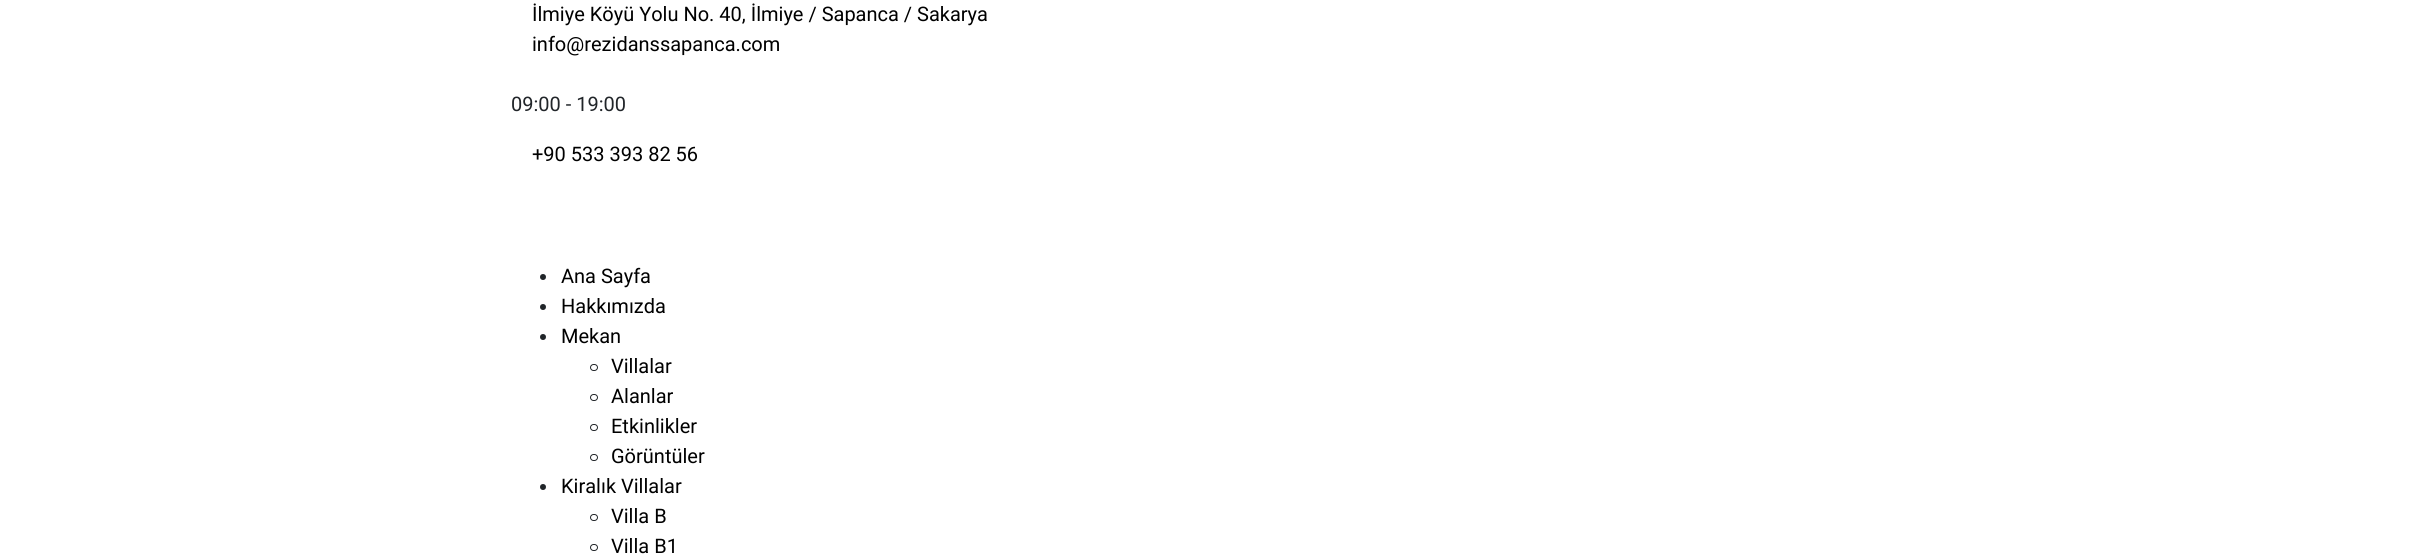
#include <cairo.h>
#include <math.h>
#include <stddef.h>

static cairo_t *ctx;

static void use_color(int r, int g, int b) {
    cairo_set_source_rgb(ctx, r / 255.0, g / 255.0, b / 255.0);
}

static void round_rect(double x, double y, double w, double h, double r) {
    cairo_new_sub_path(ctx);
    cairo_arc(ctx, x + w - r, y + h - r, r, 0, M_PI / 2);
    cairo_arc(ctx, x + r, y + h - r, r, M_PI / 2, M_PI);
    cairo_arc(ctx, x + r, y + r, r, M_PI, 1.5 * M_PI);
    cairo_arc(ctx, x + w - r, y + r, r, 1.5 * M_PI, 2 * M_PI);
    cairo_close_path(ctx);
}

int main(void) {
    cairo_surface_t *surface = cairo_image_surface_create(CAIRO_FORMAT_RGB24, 2410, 559);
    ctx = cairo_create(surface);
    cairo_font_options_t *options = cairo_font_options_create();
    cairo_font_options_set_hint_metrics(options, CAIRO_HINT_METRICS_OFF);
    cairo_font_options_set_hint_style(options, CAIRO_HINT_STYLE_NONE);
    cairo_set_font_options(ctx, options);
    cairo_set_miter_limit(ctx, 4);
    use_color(255, 255, 255);
    cairo_paint(ctx);
    cairo_select_font_face(ctx, "Roboto", CAIRO_FONT_SLANT_NORMAL, CAIRO_FONT_WEIGHT_NORMAL);
    cairo_set_font_size(ctx, 20);
    use_color(0, 0, 0);
    cairo_move_to(ctx, 532, 21);
    cairo_show_text(ctx, "İlmiye Köyü Yolu No. 40, İlmiye / Sapanca / Sakarya");
    cairo_move_to(ctx, 532, 51);
    cairo_show_text(ctx, "info@rezidanssapanca.com");
    use_color(33, 37, 41);
    cairo_move_to(ctx, 511, 111);
    cairo_show_text(ctx, "09:00 - 19:00");
    use_color(0, 0, 0);
    cairo_move_to(ctx, 532, 161);
    cairo_show_text(ctx, "+90 533 393 82 56");
    use_color(33, 37, 41);
    cairo_new_path(ctx);
    cairo_arc(ctx, 543, 277, 3, 0, 2 * M_PI);
    cairo_fill(ctx);
    use_color(0, 0, 0);
    cairo_move_to(ctx, 561, 283);
    cairo_show_text(ctx, "Ana Sayfa");
    use_color(33, 37, 41);
    cairo_new_path(ctx);
    cairo_arc(ctx, 543, 307, 3, 0, 2 * M_PI);
    cairo_fill(ctx);
    use_color(0, 0, 0);
    cairo_move_to(ctx, 561, 313);
    cairo_show_text(ctx, "Hakkımızda");
    use_color(33, 37, 41);
    cairo_new_path(ctx);
    cairo_arc(ctx, 543, 337, 3, 0, 2 * M_PI);
    cairo_fill(ctx);
    use_color(0, 0, 0);
    cairo_move_to(ctx, 561, 343);
    cairo_show_text(ctx, "Mekan");
    round_rect(590.5, 364.5, 7, 6, 3);
    use_color(33, 37, 41);
    cairo_set_line_width(ctx, 1);
    cairo_stroke(ctx);
    use_color(0, 0, 0);
    cairo_move_to(ctx, 611, 373);
    cairo_show_text(ctx, "Villalar");
    round_rect(590.5, 394.5, 7, 6, 3);
    use_color(33, 37, 41);
    cairo_stroke(ctx);
    use_color(0, 0, 0);
    cairo_move_to(ctx, 611, 403);
    cairo_show_text(ctx, "Alanlar");
    round_rect(590.5, 424.5, 7, 6, 3);
    use_color(33, 37, 41);
    cairo_stroke(ctx);
    use_color(0, 0, 0);
    cairo_move_to(ctx, 611, 433);
    cairo_show_text(ctx, "Etkinlikler");
    round_rect(590.5, 454.5, 7, 6, 3);
    use_color(33, 37, 41);
    cairo_stroke(ctx);
    use_color(0, 0, 0);
    cairo_move_to(ctx, 611, 463);
    cairo_show_text(ctx, "Görüntüler");
    use_color(33, 37, 41);
    cairo_new_path(ctx);
    cairo_arc(ctx, 543, 487, 3, 0, 2 * M_PI);
    cairo_fill(ctx);
    use_color(0, 0, 0);
    cairo_move_to(ctx, 561, 493);
    cairo_show_text(ctx, "Kiralık Villalar");
    round_rect(590.5, 514.5, 7, 6, 3);
    use_color(33, 37, 41);
    cairo_stroke(ctx);
    use_color(0, 0, 0);
    cairo_move_to(ctx, 611, 523);
    cairo_show_text(ctx, "Villa B");
    round_rect(590.5, 544.5, 7, 6, 3);
    use_color(33, 37, 41);
    cairo_stroke(ctx);
    use_color(0, 0, 0);
    cairo_move_to(ctx, 611, 553);
    cairo_show_text(ctx, "Villa B1");
    cairo_surface_write_to_png(surface, "result.png");
    cairo_font_options_destroy(options);
    cairo_destroy(ctx);
    cairo_surface_destroy(surface);
    return 0;
}
